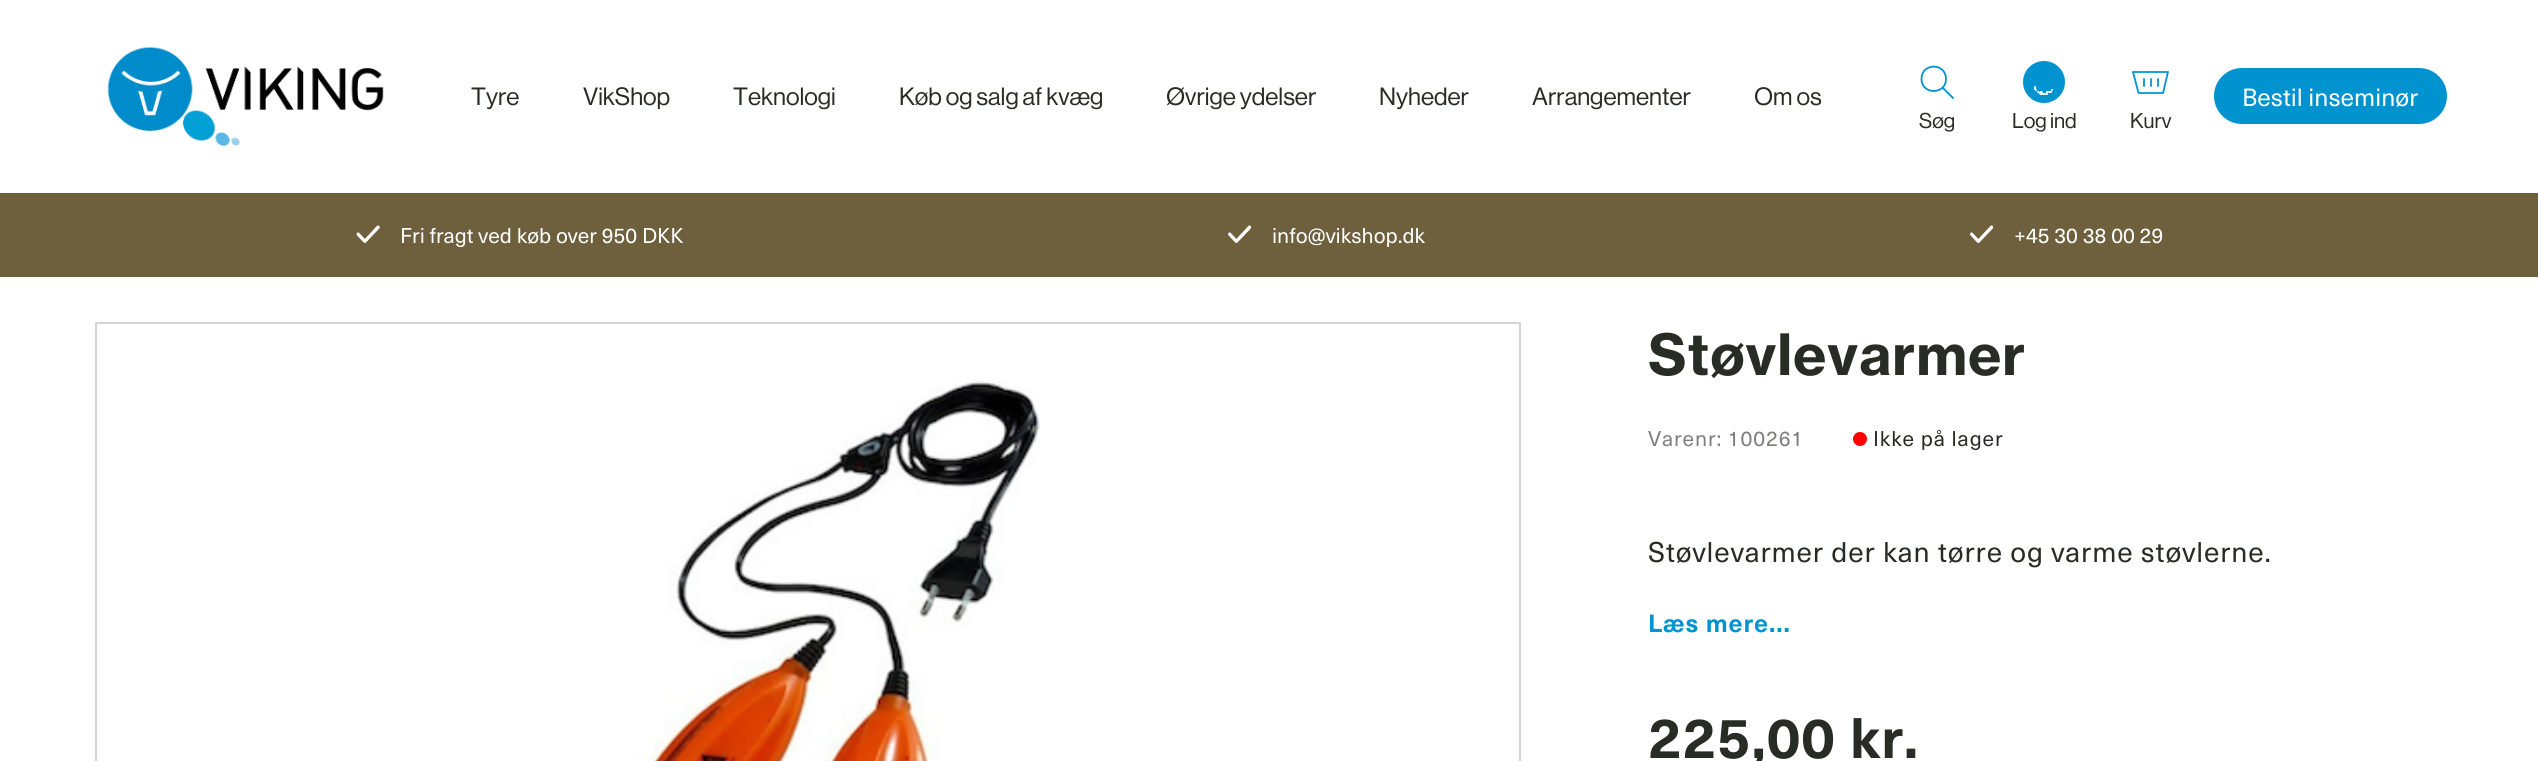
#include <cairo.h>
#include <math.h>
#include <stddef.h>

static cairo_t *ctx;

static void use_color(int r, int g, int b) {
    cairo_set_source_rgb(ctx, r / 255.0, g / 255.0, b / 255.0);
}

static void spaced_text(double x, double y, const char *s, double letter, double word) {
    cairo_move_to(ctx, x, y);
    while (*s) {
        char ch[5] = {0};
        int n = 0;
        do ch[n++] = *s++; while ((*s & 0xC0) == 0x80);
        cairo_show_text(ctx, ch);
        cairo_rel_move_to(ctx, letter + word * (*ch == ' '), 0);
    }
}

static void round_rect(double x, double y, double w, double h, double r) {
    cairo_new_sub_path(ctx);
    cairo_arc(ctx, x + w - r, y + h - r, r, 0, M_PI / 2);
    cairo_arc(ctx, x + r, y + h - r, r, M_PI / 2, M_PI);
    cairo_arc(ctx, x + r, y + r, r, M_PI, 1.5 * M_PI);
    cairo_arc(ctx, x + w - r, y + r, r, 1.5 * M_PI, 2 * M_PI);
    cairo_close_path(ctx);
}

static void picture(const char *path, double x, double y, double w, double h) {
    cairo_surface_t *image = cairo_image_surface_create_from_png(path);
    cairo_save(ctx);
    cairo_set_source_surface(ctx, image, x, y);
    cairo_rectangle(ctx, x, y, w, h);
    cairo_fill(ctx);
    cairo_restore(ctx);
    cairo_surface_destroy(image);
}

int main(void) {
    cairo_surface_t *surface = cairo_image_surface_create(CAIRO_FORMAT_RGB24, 2538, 761);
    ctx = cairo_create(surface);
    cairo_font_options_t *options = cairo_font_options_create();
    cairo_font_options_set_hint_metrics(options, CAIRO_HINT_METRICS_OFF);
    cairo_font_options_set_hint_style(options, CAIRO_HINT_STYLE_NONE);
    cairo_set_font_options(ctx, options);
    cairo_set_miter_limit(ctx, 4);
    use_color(255, 255, 255);
    cairo_paint(ctx);
    picture("img1.png", 107, 46, 277, 100);
    cairo_select_font_face(ctx, "Neue Haas Grotesk", CAIRO_FONT_SLANT_NORMAL, CAIRO_FONT_WEIGHT_NORMAL);
    cairo_set_font_size(ctx, 24.5);
    use_color(39, 44, 37);
    cairo_move_to(ctx, 471, 105);
    cairo_show_text(ctx, "Tyre");
    cairo_move_to(ctx, 583, 105);
    cairo_show_text(ctx, "VikShop");
    cairo_move_to(ctx, 733, 105);
    cairo_show_text(ctx, "Teknologi");
    cairo_move_to(ctx, 899, 105);
    cairo_show_text(ctx, "Køb og salg af kvæg");
    cairo_move_to(ctx, 1166, 105);
    cairo_show_text(ctx, "Øvrige ydelser");
    cairo_move_to(ctx, 1379, 105);
    cairo_show_text(ctx, "Nyheder");
    cairo_move_to(ctx, 1532, 105);
    cairo_show_text(ctx, "Arrangementer");
    cairo_move_to(ctx, 1754, 105);
    cairo_show_text(ctx, "Om os");
    use_color(0, 147, 208);
    round_rect(2214, 68, 233, 56, 28);
    cairo_fill(ctx);
    cairo_select_font_face(ctx, "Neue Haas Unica", CAIRO_FONT_SLANT_NORMAL, CAIRO_FONT_WEIGHT_NORMAL);
    use_color(255, 255, 255);
    cairo_move_to(ctx, 2242, 106);
    cairo_show_text(ctx, "Bestil inseminør");
    cairo_new_path(ctx);
    cairo_move_to(ctx, 1953, 98);
    cairo_line_to(ctx, 1942.5, 87.5);
    cairo_move_to(ctx, 1946, 79);
    cairo_curve_to(ctx, 1946, 95, 1921.5, 95, 1921.5, 79);
    cairo_curve_to(ctx, 1921.5, 62.5, 1946, 62.5, 1946, 79);
    cairo_close_path(ctx);
    use_color(0, 147, 208);
    cairo_set_line_width(ctx, 1.8);
    cairo_set_line_cap(ctx, CAIRO_LINE_CAP_ROUND);
    cairo_set_line_join(ctx, CAIRO_LINE_JOIN_ROUND);
    cairo_stroke(ctx);
    cairo_select_font_face(ctx, "Neue Haas Grotesk", CAIRO_FONT_SLANT_NORMAL, CAIRO_FONT_WEIGHT_NORMAL);
    cairo_set_font_size(ctx, 21);
    use_color(39, 44, 37);
    cairo_move_to(ctx, 1919, 128);
    cairo_show_text(ctx, "Søg");
    use_color(0, 147, 208);
    cairo_new_path(ctx);
    cairo_arc(ctx, 2044, 82, 21, 0, 2 * M_PI);
    cairo_fill(ctx);
    use_color(255, 255, 255);
    cairo_arc(ctx, 2036, 90, 1, 0, 2 * M_PI);
    cairo_fill(ctx);
    round_rect(2034, 86, 2, 4, 1);
    cairo_fill(ctx);
    cairo_arc(ctx, 2052, 90, 1, 0, 2 * M_PI);
    cairo_fill(ctx);
    cairo_arc(ctx, 2038, 92, 1, 0, 2 * M_PI);
    cairo_fill(ctx);
    round_rect(2042, 93, 4, 2, 1);
    cairo_fill(ctx);
    cairo_arc(ctx, 2041, 93, 2, 0, 2 * M_PI);
    cairo_fill(ctx);
    round_rect(2046, 91, 2, 4, 1);
    cairo_fill(ctx);
    round_rect(2048, 91, 4, 2, 1);
    cairo_fill(ctx);
    use_color(39, 44, 37);
    cairo_move_to(ctx, 2012, 128);
    cairo_show_text(ctx, "Log ind");
    cairo_new_path(ctx);
    cairo_move_to(ctx, 2168, 72);
    cairo_line_to(ctx, 2133, 72);
    cairo_line_to(ctx, 2138.5, 93);
    cairo_line_to(ctx, 2163, 93);
    cairo_close_path(ctx);
    cairo_move_to(ctx, 2144, 79);
    cairo_line_to(ctx, 2144, 86);
    cairo_move_to(ctx, 2158, 79);
    cairo_line_to(ctx, 2158, 86);
    cairo_move_to(ctx, 2151, 79);
    cairo_line_to(ctx, 2151, 86);
    use_color(0, 147, 208);
    cairo_stroke(ctx);
    use_color(39, 44, 37);
    cairo_move_to(ctx, 2130, 128);
    cairo_show_text(ctx, "Kurv");
    use_color(110, 95, 61);
    cairo_rectangle(ctx, 0, 193, 2538, 84);
    cairo_fill(ctx);
    picture("img2.png", 356, 225, 24, 18);
    cairo_select_font_face(ctx, "Neue Haas Unica", CAIRO_FONT_SLANT_NORMAL, CAIRO_FONT_WEIGHT_NORMAL);
    use_color(255, 255, 255);
    cairo_move_to(ctx, 400, 243);
    cairo_show_text(ctx, "Fri fragt ved køb over 950 DKK");
    picture("img3.png", 1228, 225, 23, 18);
    cairo_move_to(ctx, 1272, 243);
    cairo_show_text(ctx, "info@vikshop.dk");
    picture("img3.png", 1970, 225, 23, 18);
    cairo_move_to(ctx, 2014, 243);
    cairo_show_text(ctx, "+45 30 38 00 29");
    cairo_rectangle(ctx, 96, 323, 1424, 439);
    use_color(212, 213, 211);
    cairo_set_line_width(ctx, 2);
    cairo_set_line_cap(ctx, CAIRO_LINE_CAP_BUTT);
    cairo_set_line_join(ctx, CAIRO_LINE_JOIN_MITER);
    cairo_stroke(ctx);
    picture("img4.png", 637, 381, 403, 380);
    cairo_select_font_face(ctx, "Neue Haas Grotesk", CAIRO_FONT_SLANT_NORMAL, CAIRO_FONT_WEIGHT_BOLD);
    cairo_set_font_size(ctx, 56);
    use_color(39, 44, 37);
    spaced_text(1648, 375, "Støvlevarmer", 0.9, 0);
    cairo_select_font_face(ctx, "Neue Haas Unica", CAIRO_FONT_SLANT_NORMAL, CAIRO_FONT_WEIGHT_NORMAL);
    cairo_set_font_size(ctx, 21);
    use_color(125, 128, 124);
    spaced_text(1648, 446, "Varenr: 100261", 0.9, 0);
    use_color(255, 0, 0);
    cairo_new_path(ctx);
    cairo_arc(ctx, 1860, 439, 7, 0, 2 * M_PI);
    cairo_fill(ctx);
    use_color(39, 44, 37);
    spaced_text(1873, 446, "Ikke på lager", 0.9, 0);
    cairo_set_font_size(ctx, 28);
    spaced_text(1648, 562, "Støvlevarmer der kan tørre og varme støvlerne.", 0.9, 0);
    cairo_select_font_face(ctx, "Neue Haas Unica", CAIRO_FONT_SLANT_NORMAL, CAIRO_FONT_WEIGHT_BOLD);
    cairo_set_font_size(ctx, 24.5);
    use_color(0, 147, 208);
    spaced_text(1648, 632, "Læs mere...", 0.9, 0);
    cairo_set_font_size(ctx, 56);
    use_color(39, 44, 37);
    spaced_text(1648, 758, "225,00 kr.", 0.9, 0);
    cairo_surface_write_to_png(surface, "result.png");
    cairo_font_options_destroy(options);
    cairo_destroy(ctx);
    cairo_surface_destroy(surface);
    return 0;
}
